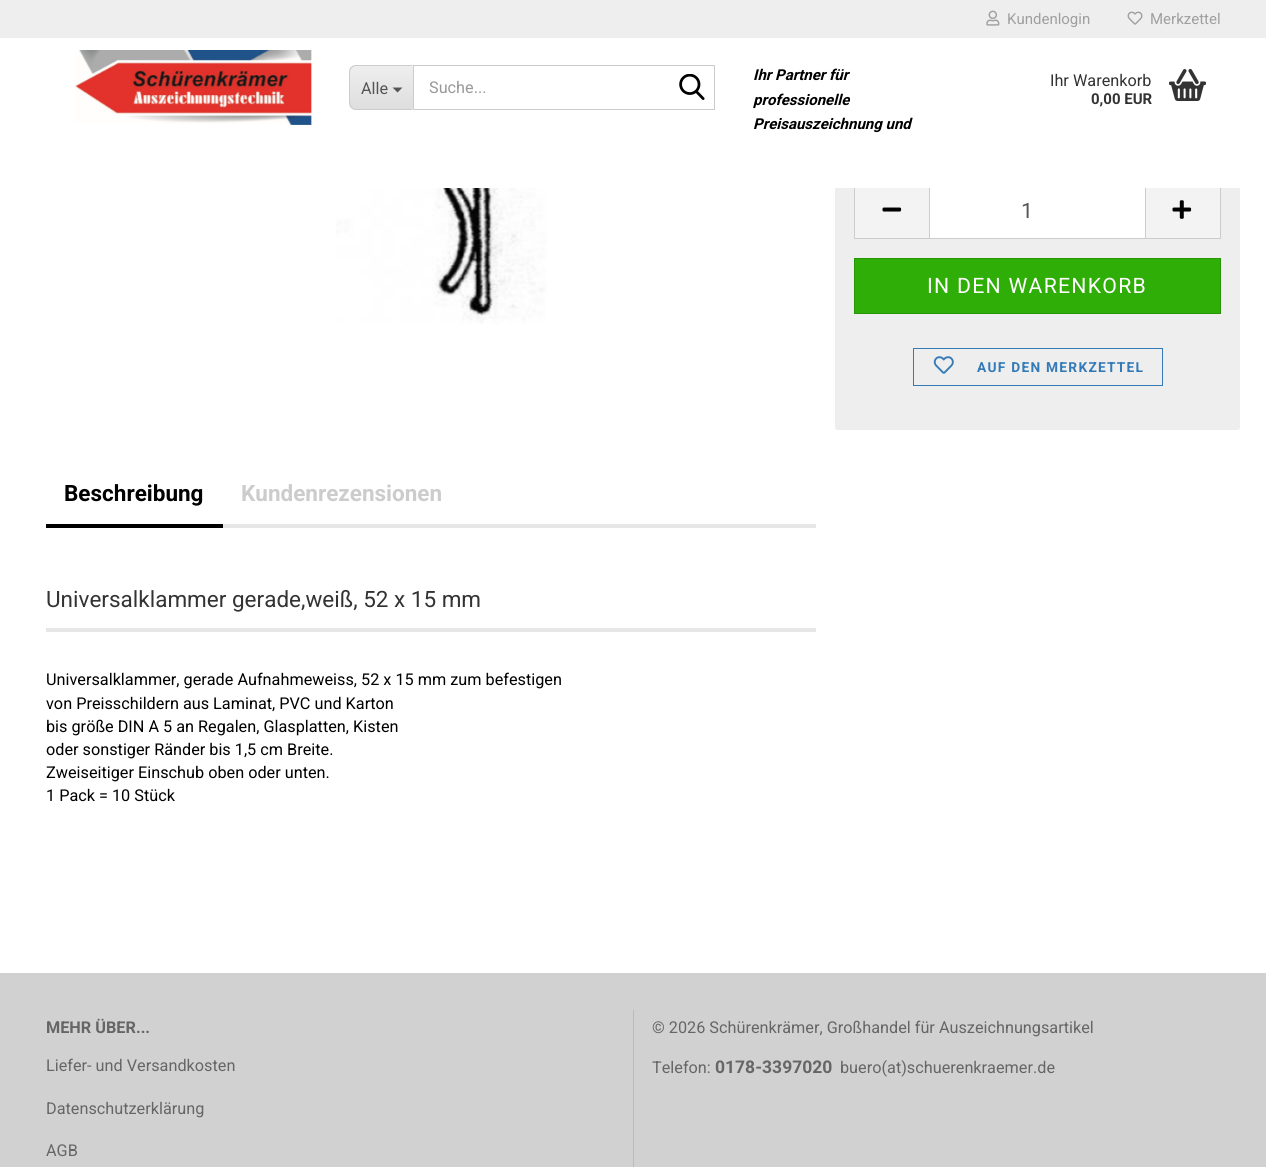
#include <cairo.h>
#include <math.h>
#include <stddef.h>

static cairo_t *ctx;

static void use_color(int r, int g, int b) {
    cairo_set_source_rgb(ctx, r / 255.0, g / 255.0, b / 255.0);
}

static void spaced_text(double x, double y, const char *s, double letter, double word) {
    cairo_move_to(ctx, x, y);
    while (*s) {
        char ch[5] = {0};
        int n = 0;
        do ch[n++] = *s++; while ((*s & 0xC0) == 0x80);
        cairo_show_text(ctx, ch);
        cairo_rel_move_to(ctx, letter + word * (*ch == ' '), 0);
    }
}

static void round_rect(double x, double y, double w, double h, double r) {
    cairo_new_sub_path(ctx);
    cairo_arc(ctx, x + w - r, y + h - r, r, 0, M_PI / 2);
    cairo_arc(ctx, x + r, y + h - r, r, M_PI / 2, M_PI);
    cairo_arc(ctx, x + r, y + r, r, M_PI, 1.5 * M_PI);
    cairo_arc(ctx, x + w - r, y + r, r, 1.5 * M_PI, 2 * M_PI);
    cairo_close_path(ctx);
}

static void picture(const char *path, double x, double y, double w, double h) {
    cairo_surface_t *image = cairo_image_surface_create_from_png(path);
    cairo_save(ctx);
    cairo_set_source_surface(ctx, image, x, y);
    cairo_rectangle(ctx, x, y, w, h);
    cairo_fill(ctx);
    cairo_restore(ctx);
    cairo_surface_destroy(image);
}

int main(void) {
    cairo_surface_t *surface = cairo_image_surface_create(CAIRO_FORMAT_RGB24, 1266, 1167);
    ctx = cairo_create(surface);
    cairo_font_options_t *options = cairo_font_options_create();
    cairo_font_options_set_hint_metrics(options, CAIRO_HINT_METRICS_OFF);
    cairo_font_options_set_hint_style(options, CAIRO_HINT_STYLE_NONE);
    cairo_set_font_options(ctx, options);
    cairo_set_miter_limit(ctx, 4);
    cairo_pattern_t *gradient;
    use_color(255, 255, 255);
    cairo_paint(ctx);
    use_color(238, 238, 238);
    round_rect(835, -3, 405, 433, 2.5);
    cairo_fill(ctx);
    use_color(204, 204, 204);
    cairo_rectangle(ctx, 854, 238, 75, 1);
    cairo_fill(ctx);
    cairo_rectangle(ctx, 854, 183, 1, 56);
    cairo_fill(ctx);
    use_color(255, 255, 255);
    cairo_rectangle(ctx, 930, 188, 215, 50);
    cairo_fill(ctx);
    cairo_rectangle(ctx, 929.5, 183.5, 216, 55);
    use_color(204, 204, 204);
    cairo_set_line_width(ctx, 1);
    cairo_stroke(ctx);
    cairo_rectangle(ctx, 1220, 183, 1, 56);
    cairo_fill(ctx);
    use_color(255, 255, 255);
    cairo_rectangle(ctx, 835, 38, 405, 150);
    cairo_fill(ctx);
    use_color(238, 238, 238);
    cairo_rectangle(ctx, 0, 0, 1266, 38);
    cairo_fill(ctx);
    picture("img1.png", 986, 10, 14, 16);
    cairo_select_font_face(ctx, "Roboto", CAIRO_FONT_SLANT_NORMAL, CAIRO_FONT_WEIGHT_NORMAL);
    cairo_set_font_size(ctx, 15);
    use_color(159, 159, 159);
    cairo_move_to(ctx, 1007, 24);
    cairo_show_text(ctx, "Kundenlogin");
    picture("img2.png", 1127, 11, 16, 14);
    cairo_move_to(ctx, 1150, 24);
    cairo_show_text(ctx, "Merkzettel");
    picture("img3.png", 74, 50, 238, 75);
    use_color(243, 243, 243);
    cairo_new_path(ctx);
    cairo_move_to(ctx, 357, 65);
    cairo_line_to(ctx, 413, 65);
    cairo_line_to(ctx, 413, 110);
    cairo_line_to(ctx, 357, 110);
    cairo_curve_to(ctx, 352.5, 110, 349, 106.5, 349, 102);
    cairo_line_to(ctx, 349, 73);
    cairo_curve_to(ctx, 349, 68.5, 352.5, 65, 357, 65);
    cairo_close_path(ctx);
    cairo_fill(ctx);
    cairo_save(ctx);
    cairo_new_path(ctx);
    cairo_move_to(ctx, 357, 65);
    cairo_line_to(ctx, 413, 65);
    cairo_line_to(ctx, 413, 110);
    cairo_line_to(ctx, 357, 110);
    cairo_curve_to(ctx, 352.5, 110, 349, 106.5, 349, 102);
    cairo_line_to(ctx, 349, 73);
    cairo_curve_to(ctx, 349, 68.5, 352.5, 65, 357, 65);
    cairo_close_path(ctx);
    cairo_clip(ctx);
    gradient = cairo_pattern_create_linear(381, 66, 381, 109);
    cairo_pattern_add_color_stop_rgba(gradient, 0, 0.933, 0.933, 0.933, 1);
    cairo_pattern_add_color_stop_rgba(gradient, 1, 0.871, 0.871, 0.871, 1);
    cairo_set_source(ctx, gradient);
    cairo_pattern_destroy(gradient);
    cairo_rectangle(ctx, 349, 66, 64, 43);
    cairo_fill(ctx);
    cairo_restore(ctx);
    use_color(204, 204, 204);
    cairo_set_fill_rule(ctx, CAIRO_FILL_RULE_EVEN_ODD);
    cairo_new_path(ctx);
    cairo_move_to(ctx, 356, 65);
    cairo_line_to(ctx, 412, 65);
    cairo_line_to(ctx, 412, 110);
    cairo_line_to(ctx, 356, 110);
    cairo_curve_to(ctx, 352, 110, 349, 107, 349, 102);
    cairo_line_to(ctx, 349, 72);
    cairo_curve_to(ctx, 349, 68, 352, 65, 356, 65);
    cairo_close_path(ctx);
    cairo_move_to(ctx, 356, 66);
    cairo_line_to(ctx, 412, 66);
    cairo_line_to(ctx, 412, 109);
    cairo_line_to(ctx, 356, 109);
    cairo_curve_to(ctx, 353, 109, 350, 106, 350, 102);
    cairo_line_to(ctx, 350, 72);
    cairo_curve_to(ctx, 350, 69, 353, 66, 356, 66);
    cairo_close_path(ctx);
    cairo_fill(ctx);
    cairo_set_font_size(ctx, 16.25);
    use_color(85, 85, 85);
    cairo_move_to(ctx, 361, 94);
    cairo_show_text(ctx, "Alle");
    cairo_set_fill_rule(ctx, CAIRO_FILL_RULE_WINDING);
    cairo_new_path(ctx);
    cairo_move_to(ctx, 392.5, 87.5);
    cairo_line_to(ctx, 402.5, 87.5);
    cairo_line_to(ctx, 397.5, 92.5);
    cairo_close_path(ctx);
    cairo_fill(ctx);
    cairo_rectangle(ctx, 413.5, 65.5, 301, 44);
    use_color(204, 204, 204);
    cairo_stroke(ctx);
    use_color(153, 153, 153);
    cairo_move_to(ctx, 429, 93);
    cairo_show_text(ctx, "Suche...");
    picture("img4.png", 679, 74, 26, 26);
    cairo_select_font_face(ctx, "Roboto", CAIRO_FONT_SLANT_ITALIC, CAIRO_FONT_WEIGHT_BOLD);
    cairo_set_font_size(ctx, 15);
    use_color(0, 0, 0);
    cairo_move_to(ctx, 753, 80);
    cairo_show_text(ctx, "Ihr Partner für");
    cairo_move_to(ctx, 753, 105);
    cairo_show_text(ctx, "professionelle");
    cairo_move_to(ctx, 753, 129);
    cairo_show_text(ctx, "Preisauszeichnung und");
    cairo_select_font_face(ctx, "Roboto", CAIRO_FONT_SLANT_NORMAL, CAIRO_FONT_WEIGHT_NORMAL);
    cairo_set_font_size(ctx, 16.25);
    use_color(51, 51, 51);
    cairo_move_to(ctx, 1050, 86);
    cairo_show_text(ctx, "Ihr Warenkorb");
    cairo_select_font_face(ctx, "Roboto", CAIRO_FONT_SLANT_NORMAL, CAIRO_FONT_WEIGHT_BOLD);
    cairo_set_font_size(ctx, 15);
    cairo_move_to(ctx, 1091, 104);
    cairo_show_text(ctx, "0,00 EUR");
    picture("img5.png", 1169, 68, 37, 33);
    picture("img6.png", 336, 188, 211, 136);
    use_color(243, 243, 243);
    cairo_rectangle(ctx, 855, 188, 74, 50);
    cairo_fill(ctx);
    picture("img7.png", 882, 207, 20, 5);
    cairo_select_font_face(ctx, "Roboto", CAIRO_FONT_SLANT_NORMAL, CAIRO_FONT_WEIGHT_NORMAL);
    cairo_set_font_size(ctx, 21.25);
    use_color(85, 85, 85);
    cairo_move_to(ctx, 1021, 218);
    cairo_show_text(ctx, "1");
    use_color(243, 243, 243);
    cairo_rectangle(ctx, 1146, 188, 74, 50);
    cairo_fill(ctx);
    use_color(204, 204, 204);
    cairo_rectangle(ctx, 1146, 238, 75, 1);
    cairo_fill(ctx);
    picture("img8.png", 1172, 200, 20, 19);
    use_color(46, 174, 6);
    cairo_rectangle(ctx, 854.5, 258.5, 366, 55);
    cairo_fill_preserve(ctx);
    use_color(39, 149, 5);
    cairo_stroke(ctx);
    use_color(255, 255, 255);
    spaced_text(927, 293, "IN DEN WARENKORB", 1.25, 0);
    cairo_rectangle(ctx, 913.5, 348.5, 249, 37);
    use_color(51, 122, 183);
    cairo_stroke(ctx);
    picture("img9.png", 933, 356, 21, 18);
    cairo_select_font_face(ctx, "Roboto", CAIRO_FONT_SLANT_NORMAL, CAIRO_FONT_WEIGHT_BOLD);
    cairo_set_font_size(ctx, 13.75);
    spaced_text(977, 372, "AUF DEN MERKZETTEL", 1.25, 0);
    use_color(231, 231, 231);
    cairo_rectangle(ctx, 223, 524, 593, 4);
    cairo_fill(ctx);
    use_color(0, 0, 0);
    cairo_rectangle(ctx, 46, 524, 177, 4);
    cairo_fill(ctx);
    cairo_set_font_size(ctx, 22.5);
    cairo_move_to(ctx, 64, 501);
    cairo_show_text(ctx, "Beschreibung");
    use_color(204, 204, 204);
    cairo_move_to(ctx, 241, 501);
    cairo_show_text(ctx, "Kundenrezensionen");
    use_color(231, 231, 231);
    cairo_rectangle(ctx, 46, 628, 770, 4);
    cairo_fill(ctx);
    cairo_select_font_face(ctx, "Roboto", CAIRO_FONT_SLANT_NORMAL, CAIRO_FONT_WEIGHT_NORMAL);
    use_color(51, 51, 51);
    cairo_move_to(ctx, 46, 607);
    cairo_show_text(ctx, "Universalklammer gerade,weiß, 52 x 15 mm");
    cairo_set_font_size(ctx, 16.25);
    use_color(0, 0, 0);
    cairo_move_to(ctx, 46, 685);
    cairo_show_text(ctx, "Universalklammer, gerade Aufnahmeweiss, 52 x 15 mm zum befestigen");
    cairo_move_to(ctx, 46, 709);
    cairo_show_text(ctx, "von Preisschildern aus Laminat, PVC und Karton");
    cairo_move_to(ctx, 46, 732);
    cairo_show_text(ctx, "bis größe DIN A 5 an Regalen, Glasplatten, Kisten");
    cairo_move_to(ctx, 46, 755);
    cairo_show_text(ctx, "oder sonstiger Ränder bis 1,5 cm Breite.");
    cairo_move_to(ctx, 46, 778);
    cairo_show_text(ctx, "Zweiseitiger Einschub oben oder unten.");
    cairo_move_to(ctx, 46, 801);
    cairo_show_text(ctx, "1 Pack = 10 Stück");
    use_color(209, 209, 209);
    cairo_rectangle(ctx, 0, 973, 1266, 194);
    cairo_fill(ctx);
    use_color(187, 187, 187);
    cairo_rectangle(ctx, 633, 1010, 1, 157);
    cairo_fill(ctx);
    cairo_select_font_face(ctx, "Roboto", CAIRO_FONT_SLANT_NORMAL, CAIRO_FONT_WEIGHT_BOLD);
    use_color(102, 102, 102);
    cairo_move_to(ctx, 46, 1033);
    cairo_show_text(ctx, "MEHR ÜBER...");
    cairo_select_font_face(ctx, "Roboto", CAIRO_FONT_SLANT_NORMAL, CAIRO_FONT_WEIGHT_NORMAL);
    cairo_move_to(ctx, 46, 1071);
    cairo_show_text(ctx, "Liefer- und Versandkosten");
    cairo_move_to(ctx, 46, 1114);
    cairo_show_text(ctx, "Datenschutzerklärung");
    cairo_move_to(ctx, 46, 1156);
    cairo_show_text(ctx, "AGB");
    cairo_move_to(ctx, 652, 1033);
    cairo_show_text(ctx, "© 2026 Schürenkrämer, Großhandel für Auszeichnungsartikel");
    cairo_move_to(ctx, 652, 1073);
    cairo_show_text(ctx, "Telefon:");
    cairo_select_font_face(ctx, "Roboto", CAIRO_FONT_SLANT_NORMAL, CAIRO_FONT_WEIGHT_BOLD);
    cairo_set_font_size(ctx, 17.5);
    cairo_move_to(ctx, 715, 1073);
    cairo_show_text(ctx, "0178-3397020");
    cairo_select_font_face(ctx, "Roboto", CAIRO_FONT_SLANT_NORMAL, CAIRO_FONT_WEIGHT_NORMAL);
    cairo_set_font_size(ctx, 16.25);
    cairo_move_to(ctx, 840, 1073);
    cairo_show_text(ctx, "buero(at)schuerenkraemer.de");
    cairo_surface_write_to_png(surface, "result.png");
    cairo_font_options_destroy(options);
    cairo_destroy(ctx);
    cairo_surface_destroy(surface);
    return 0;
}
